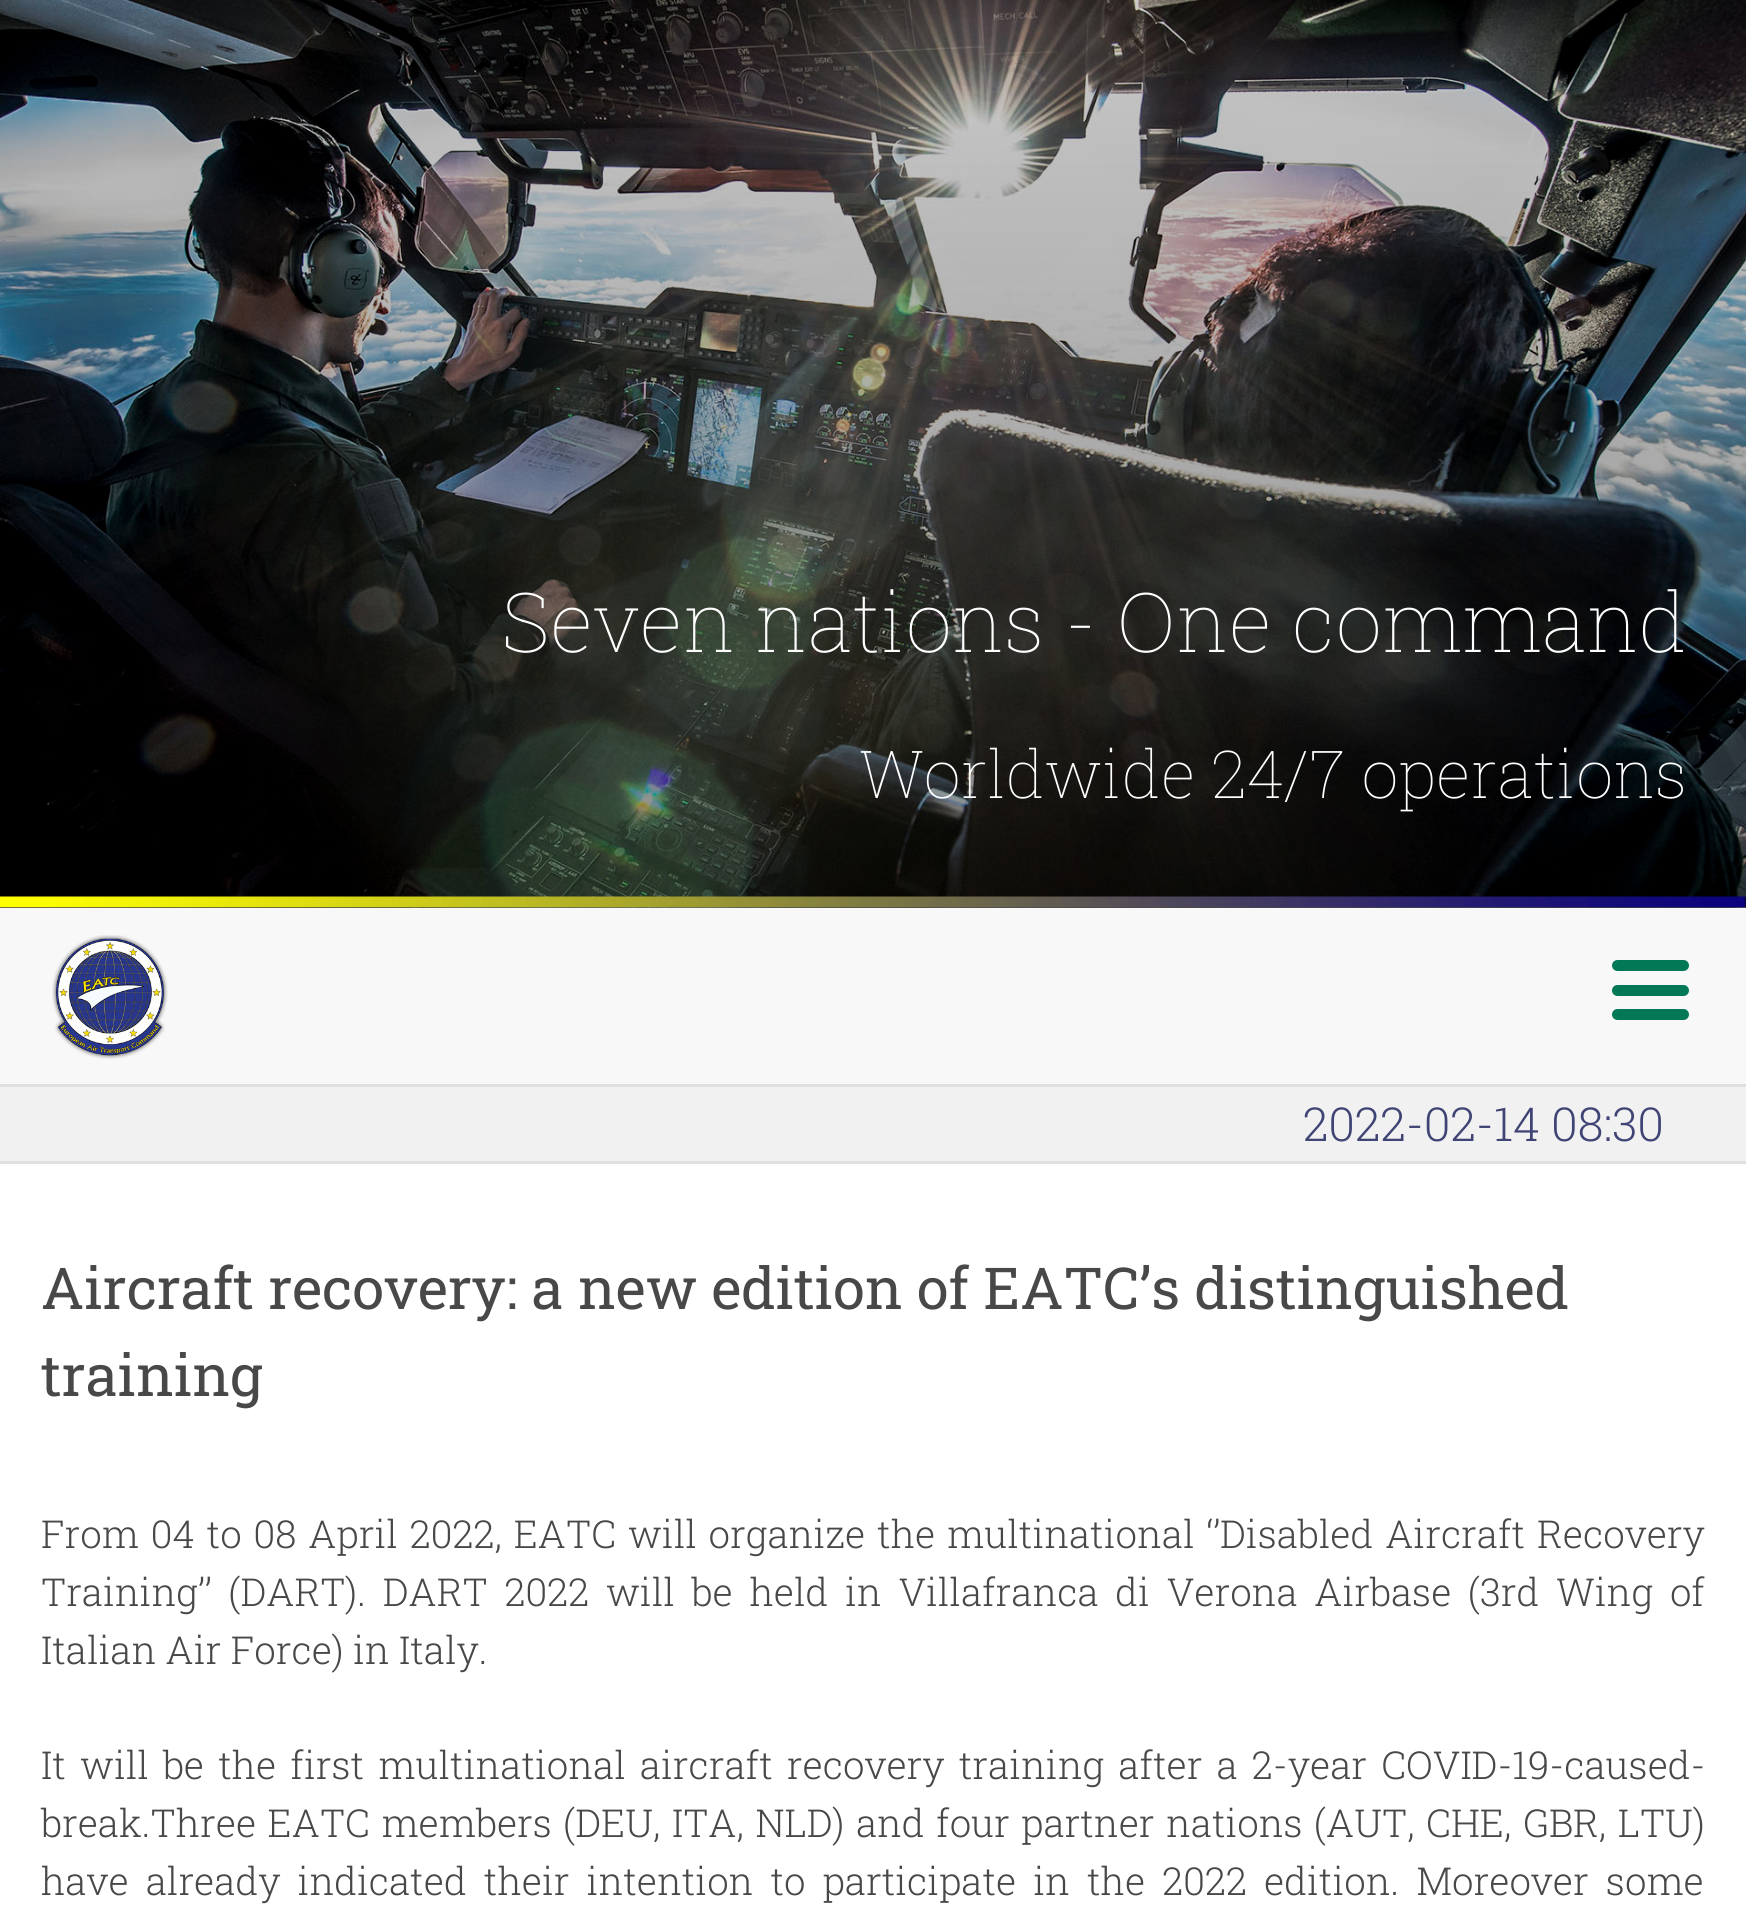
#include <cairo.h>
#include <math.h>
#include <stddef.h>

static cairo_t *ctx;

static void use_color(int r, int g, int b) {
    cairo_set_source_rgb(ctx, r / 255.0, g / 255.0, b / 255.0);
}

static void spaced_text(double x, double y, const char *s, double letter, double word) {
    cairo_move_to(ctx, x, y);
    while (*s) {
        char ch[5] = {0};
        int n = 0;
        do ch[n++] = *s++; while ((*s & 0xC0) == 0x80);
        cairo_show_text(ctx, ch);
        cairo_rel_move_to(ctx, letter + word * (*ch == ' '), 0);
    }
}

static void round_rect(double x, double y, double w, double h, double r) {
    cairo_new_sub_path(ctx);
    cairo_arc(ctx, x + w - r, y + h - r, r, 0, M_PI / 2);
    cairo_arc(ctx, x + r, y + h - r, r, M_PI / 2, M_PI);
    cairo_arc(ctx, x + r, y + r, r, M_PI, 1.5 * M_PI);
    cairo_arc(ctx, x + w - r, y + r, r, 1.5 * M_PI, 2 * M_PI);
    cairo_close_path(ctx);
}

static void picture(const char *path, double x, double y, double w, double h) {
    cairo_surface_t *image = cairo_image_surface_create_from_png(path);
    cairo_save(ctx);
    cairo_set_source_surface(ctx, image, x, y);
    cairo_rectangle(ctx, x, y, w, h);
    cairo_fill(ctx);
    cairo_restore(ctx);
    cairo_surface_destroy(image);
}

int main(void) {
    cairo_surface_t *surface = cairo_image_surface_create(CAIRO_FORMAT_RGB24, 1746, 1930);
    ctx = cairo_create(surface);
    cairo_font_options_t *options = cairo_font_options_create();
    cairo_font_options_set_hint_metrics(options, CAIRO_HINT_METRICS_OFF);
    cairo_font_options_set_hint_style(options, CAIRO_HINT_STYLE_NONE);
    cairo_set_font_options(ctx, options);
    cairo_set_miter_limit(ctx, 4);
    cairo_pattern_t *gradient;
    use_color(255, 255, 255);
    cairo_paint(ctx);
    picture("img1.png", 0, 0, 1746, 908);
    gradient = cairo_pattern_create_linear(873, 0, 873, 908);
    cairo_pattern_add_color_stop_rgba(gradient, 0, 0, 0, 0, 0.2);
    cairo_pattern_add_color_stop_rgba(gradient, 1, 0, 0, 0, 0.45);
    cairo_set_source(ctx, gradient);
    cairo_pattern_destroy(gradient);
    cairo_rectangle(ctx, 0, 0, 1746, 908);
    cairo_fill(ctx);
    cairo_select_font_face(ctx, "Roboto Slab Thin", CAIRO_FONT_SLANT_NORMAL, CAIRO_FONT_WEIGHT_NORMAL);
    cairo_set_font_size(ctx, 82.5);
    use_color(255, 255, 255);
    cairo_move_to(ctx, 502, 652);
    cairo_show_text(ctx, "Seven nations - One command");
    cairo_set_font_size(ctx, 66);
    cairo_move_to(ctx, 859, 798);
    cairo_show_text(ctx, "Worldwide 24/7 operations");
    picture("img2.png", 0, 896, 1746, 12);
    use_color(248, 248, 248);
    cairo_rectangle(ctx, 0, 908, 1746, 176);
    cairo_fill(ctx);
    use_color(224, 224, 224);
    cairo_rectangle(ctx, 0, 1084, 1746, 3);
    cairo_fill(ctx);
    picture("img3.png", 52, 935, 116, 124);
    use_color(3, 120, 87);
    round_rect(1612, 960, 77, 11, 5.5);
    cairo_fill(ctx);
    round_rect(1612, 985, 77, 11, 5.5);
    cairo_fill(ctx);
    round_rect(1612, 1009, 77, 11, 5.5);
    cairo_fill(ctx);
    use_color(241, 241, 241);
    cairo_rectangle(ctx, 0, 1087, 1746, 74);
    cairo_fill(ctx);
    use_color(224, 224, 224);
    cairo_rectangle(ctx, 0, 1161, 1746, 3);
    cairo_fill(ctx);
    cairo_select_font_face(ctx, "Roboto Slab Light", CAIRO_FONT_SLANT_NORMAL, CAIRO_FONT_WEIGHT_NORMAL);
    cairo_set_font_size(ctx, 46.75);
    use_color(64, 68, 117);
    cairo_move_to(ctx, 1303, 1141);
    cairo_show_text(ctx, "2022-02-14 08:30");
    cairo_select_font_face(ctx, "Roboto Slab", CAIRO_FONT_SLANT_NORMAL, CAIRO_FONT_WEIGHT_NORMAL);
    cairo_set_font_size(ctx, 57.75);
    use_color(72, 72, 72);
    cairo_move_to(ctx, 41, 1309);
    cairo_show_text(ctx, "Aircraft recovery: a new edition of EATC’s distinguished");
    cairo_move_to(ctx, 41, 1396);
    cairo_show_text(ctx, "training");
    cairo_select_font_face(ctx, "Roboto Slab Light", CAIRO_FONT_SLANT_NORMAL, CAIRO_FONT_WEIGHT_NORMAL);
    cairo_set_font_size(ctx, 38.5);
    spaced_text(41, 1548, "From 04 to 08 April 2022, EATC will organize the multinational ‘’Disabled Aircraft Recovery", 0, 2.5);
    spaced_text(41, 1606, "Training’’ (DART). DART 2022 will be held in Villafranca di Verona Airbase (3rd Wing of", 0, 7.4);
    cairo_move_to(ctx, 41, 1664);
    cairo_show_text(ctx, "Italian Air Force) in Italy.");
    spaced_text(41, 1779, "It will be the first multinational aircraft recovery training after a 2-year COVID-19-caused-", 0, 4.75);
    spaced_text(41, 1837, "break.Three EATC members (DEU, ITA, NLD) and four partner nations (AUT, CHE, GBR, LTU)", 0, 2.1);
    spaced_text(41, 1895, "have already indicated their intention to participate in the 2022 edition. Moreover some", 0, 7.75);
    cairo_surface_write_to_png(surface, "result.png");
    cairo_font_options_destroy(options);
    cairo_destroy(ctx);
    cairo_surface_destroy(surface);
    return 0;
}
